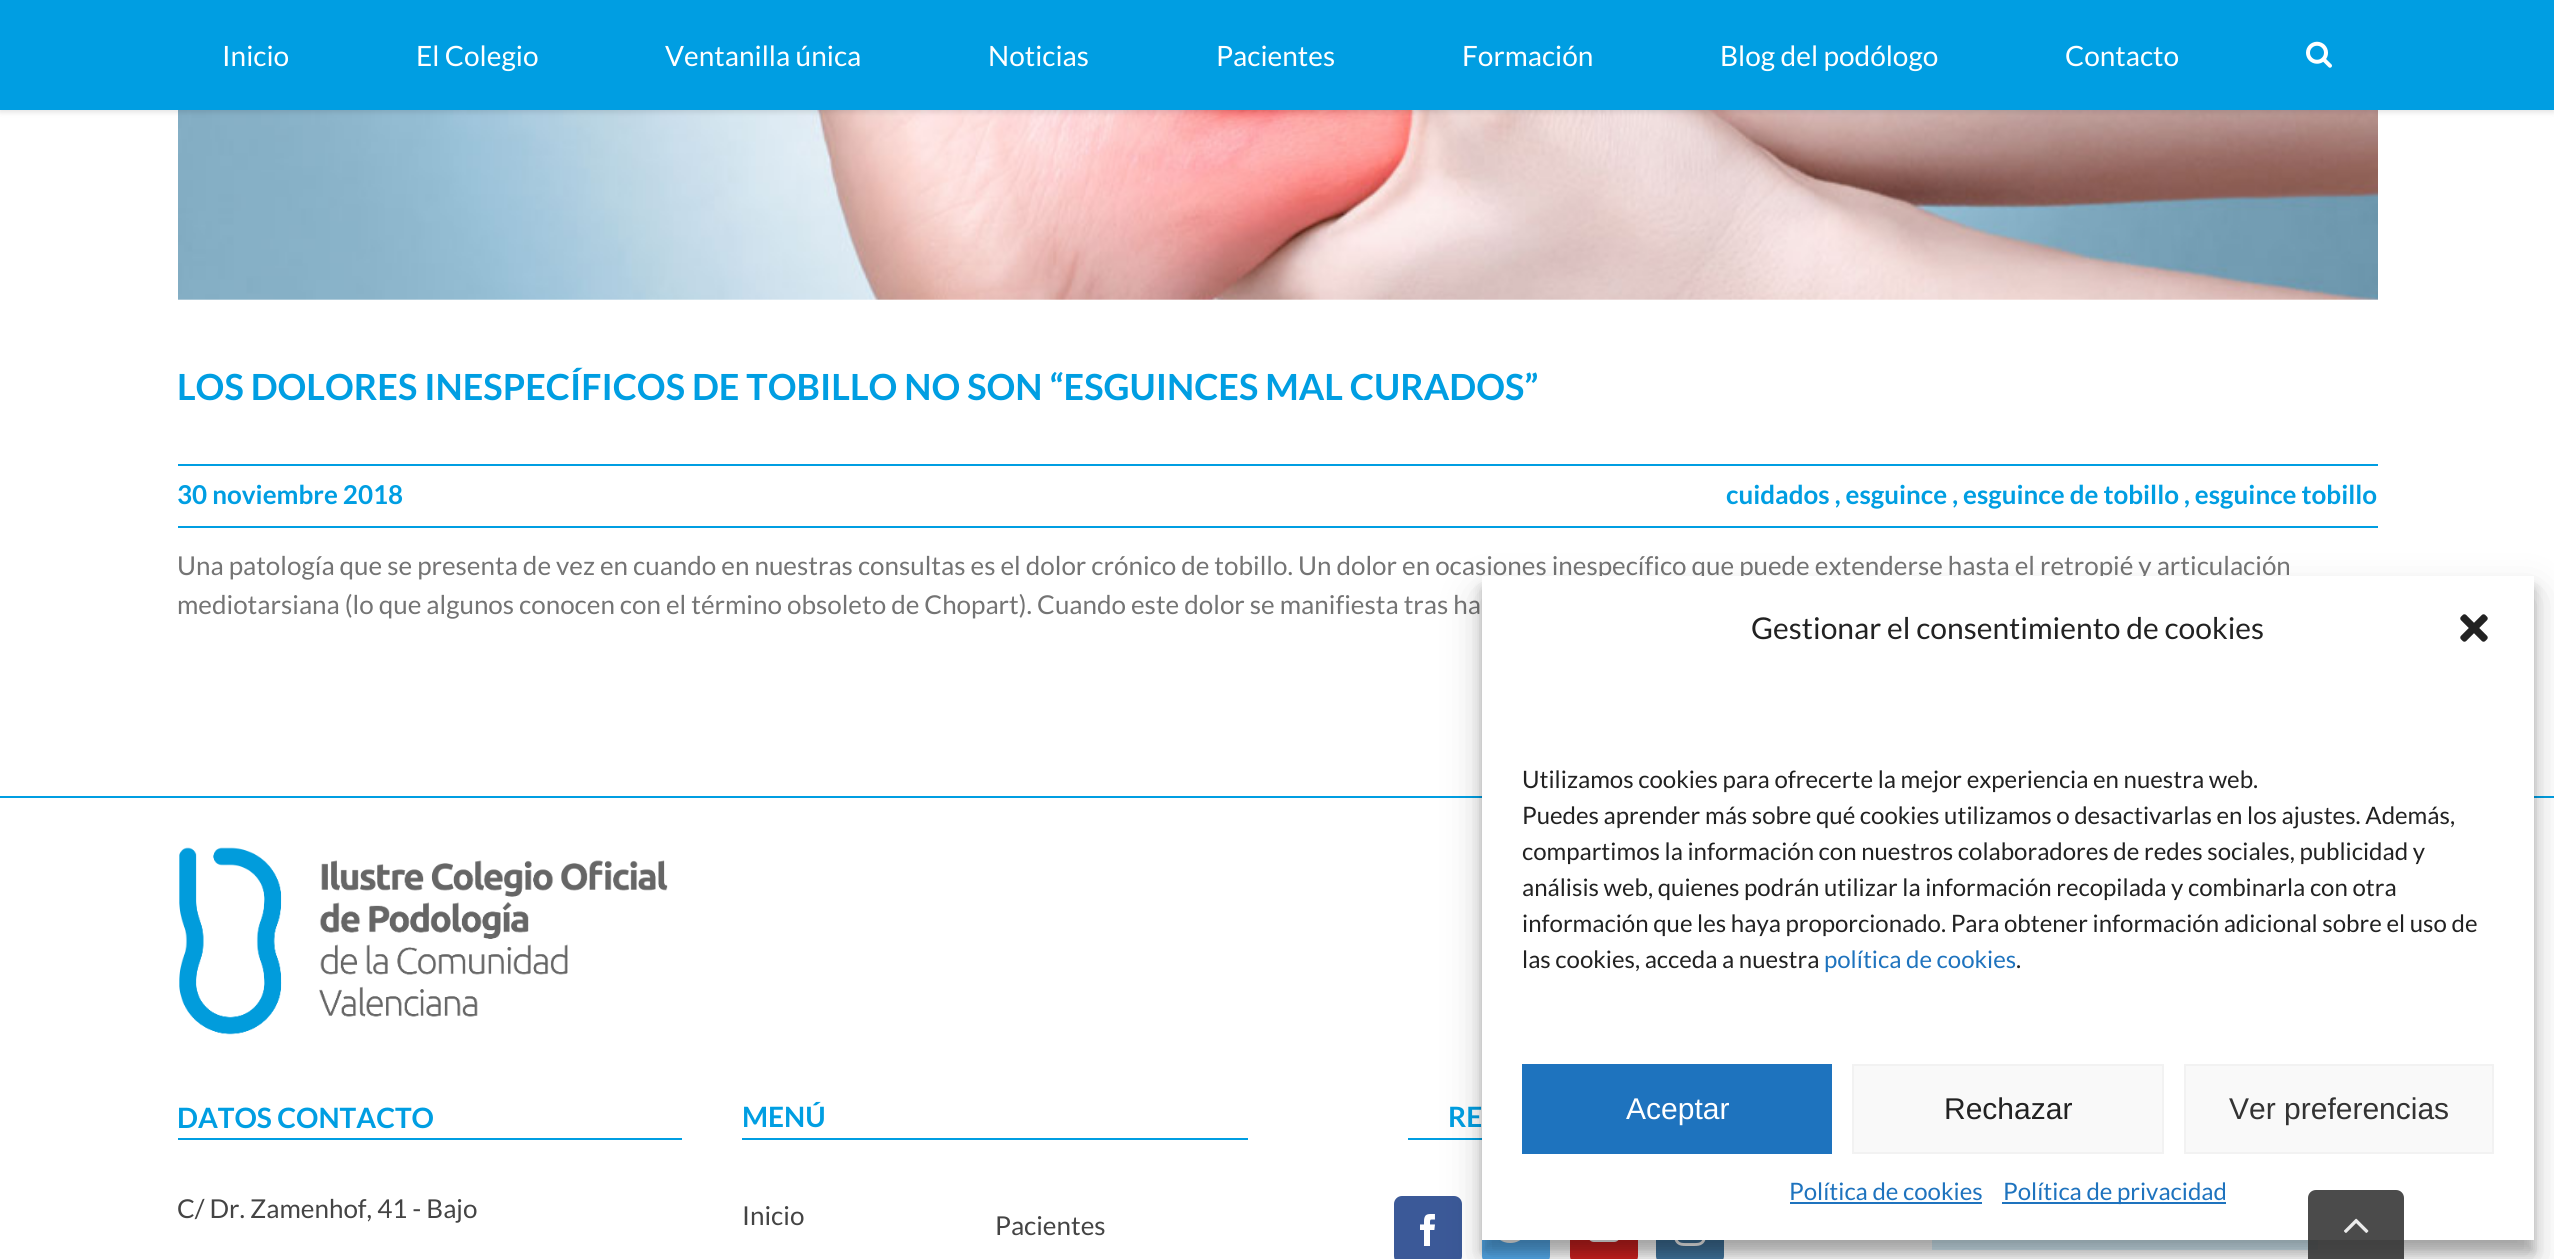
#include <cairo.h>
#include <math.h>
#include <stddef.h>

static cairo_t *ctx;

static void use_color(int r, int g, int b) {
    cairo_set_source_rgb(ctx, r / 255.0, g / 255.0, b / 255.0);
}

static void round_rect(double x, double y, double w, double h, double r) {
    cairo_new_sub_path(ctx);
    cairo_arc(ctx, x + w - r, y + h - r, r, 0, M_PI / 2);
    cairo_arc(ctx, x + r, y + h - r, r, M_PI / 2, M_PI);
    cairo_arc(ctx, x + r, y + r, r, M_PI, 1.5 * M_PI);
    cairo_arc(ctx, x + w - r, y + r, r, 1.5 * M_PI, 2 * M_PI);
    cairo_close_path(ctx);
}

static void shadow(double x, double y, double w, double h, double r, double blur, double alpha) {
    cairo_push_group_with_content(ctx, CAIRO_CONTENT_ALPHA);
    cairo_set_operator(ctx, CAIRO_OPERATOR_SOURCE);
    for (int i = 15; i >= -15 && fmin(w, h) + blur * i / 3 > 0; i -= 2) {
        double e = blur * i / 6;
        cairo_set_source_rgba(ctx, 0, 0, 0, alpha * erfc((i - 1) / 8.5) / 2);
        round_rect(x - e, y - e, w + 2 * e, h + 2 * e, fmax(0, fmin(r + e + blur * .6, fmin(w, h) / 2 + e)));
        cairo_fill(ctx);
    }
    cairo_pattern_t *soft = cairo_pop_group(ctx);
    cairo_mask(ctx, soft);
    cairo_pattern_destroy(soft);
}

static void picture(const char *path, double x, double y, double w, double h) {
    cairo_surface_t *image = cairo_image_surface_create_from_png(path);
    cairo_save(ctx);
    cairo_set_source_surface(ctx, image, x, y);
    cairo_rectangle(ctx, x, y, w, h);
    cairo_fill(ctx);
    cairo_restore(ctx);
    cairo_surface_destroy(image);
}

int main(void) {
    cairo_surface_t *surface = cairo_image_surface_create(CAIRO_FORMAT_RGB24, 2554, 1259);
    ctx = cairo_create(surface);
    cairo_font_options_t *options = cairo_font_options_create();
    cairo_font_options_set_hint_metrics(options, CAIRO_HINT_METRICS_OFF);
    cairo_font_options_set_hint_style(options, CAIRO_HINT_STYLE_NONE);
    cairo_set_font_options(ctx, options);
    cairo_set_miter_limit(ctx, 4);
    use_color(255, 255, 255);
    cairo_paint(ctx);
    picture("img2.png", 178, 110, 2200, 190);
    use_color(0, 0, 0);
    shadow(0, 2, 2554, 110, 0, 3, 0.12);
    use_color(0, 158, 226);
    cairo_rectangle(ctx, 0, 0, 2554, 110);
    cairo_fill(ctx);
    cairo_select_font_face(ctx, "Lato", CAIRO_FONT_SLANT_NORMAL, CAIRO_FONT_WEIGHT_NORMAL);
    cairo_set_font_size(ctx, 28);
    use_color(255, 255, 255);
    cairo_move_to(ctx, 222, 66);
    cairo_show_text(ctx, "Inicio");
    cairo_move_to(ctx, 416, 66);
    cairo_show_text(ctx, "El Colegio");
    cairo_move_to(ctx, 665, 66);
    cairo_show_text(ctx, "Ventanilla única");
    cairo_move_to(ctx, 988, 66);
    cairo_show_text(ctx, "Noticias");
    cairo_move_to(ctx, 1216, 66);
    cairo_show_text(ctx, "Pacientes");
    cairo_move_to(ctx, 1462, 66);
    cairo_show_text(ctx, "Formación");
    cairo_move_to(ctx, 1720, 66);
    cairo_show_text(ctx, "Blog del podólogo");
    cairo_move_to(ctx, 2065, 66);
    cairo_show_text(ctx, "Contacto");
    picture("img1.png", 2306, 41, 26, 27);
    cairo_select_font_face(ctx, "Lato", CAIRO_FONT_SLANT_NORMAL, CAIRO_FONT_WEIGHT_BOLD);
    cairo_set_font_size(ctx, 36);
    use_color(0, 158, 226);
    cairo_move_to(ctx, 177, 400);
    cairo_show_text(ctx, "LOS DOLORES INESPECÍFICOS DE TOBILLO NO SON “ESGUINCES MAL CURADOS”");
    cairo_rectangle(ctx, 178, 464, 2200, 2);
    cairo_fill(ctx);
    cairo_rectangle(ctx, 178, 526, 2200, 2);
    cairo_fill(ctx);
    cairo_set_font_size(ctx, 26);
    cairo_move_to(ctx, 177, 504);
    cairo_show_text(ctx, "30 noviembre 2018");
    cairo_move_to(ctx, 1726, 504);
    cairo_show_text(ctx, "cuidados , esguince , esguince de tobillo , esguince tobillo");
    cairo_select_font_face(ctx, "Lato", CAIRO_FONT_SLANT_NORMAL, CAIRO_FONT_WEIGHT_NORMAL);
    use_color(116, 116, 116);
    cairo_move_to(ctx, 177, 575);
    cairo_show_text(ctx, "Una patología que se presenta de vez en cuando en nuestras consultas es el dolor crónico de tobillo. Un dolor en ocasiones inespecífico que puede extenderse hasta el retropié y articulación");
    cairo_move_to(ctx, 177, 614);
    cairo_show_text(ctx, "mediotarsiana (lo que algunos conocen con el término obsoleto de Chopart). Cuando este dolor se manifiesta tras ha");
    use_color(0, 158, 226);
    cairo_rectangle(ctx, 0, 796, 2554, 2);
    cairo_fill(ctx);
    picture("img3.png", 179, 847, 489, 188);
    cairo_rectangle(ctx, 178, 1138, 504, 2);
    cairo_fill(ctx);
    cairo_select_font_face(ctx, "Lato", CAIRO_FONT_SLANT_NORMAL, CAIRO_FONT_WEIGHT_BOLD);
    cairo_set_font_size(ctx, 28);
    cairo_move_to(ctx, 177, 1128);
    cairo_show_text(ctx, "DATOS CONTACTO");
    cairo_select_font_face(ctx, "Lato", CAIRO_FONT_SLANT_NORMAL, CAIRO_FONT_WEIGHT_NORMAL);
    cairo_set_font_size(ctx, 26);
    use_color(68, 68, 68);
    cairo_move_to(ctx, 177, 1218);
    cairo_show_text(ctx, "C/ Dr. Zamenhof, 41 - Bajo");
    use_color(0, 158, 226);
    cairo_rectangle(ctx, 742, 1138, 506, 2);
    cairo_fill(ctx);
    cairo_select_font_face(ctx, "Lato", CAIRO_FONT_SLANT_NORMAL, CAIRO_FONT_WEIGHT_BOLD);
    cairo_set_font_size(ctx, 28);
    cairo_move_to(ctx, 742, 1127);
    cairo_show_text(ctx, "MENÚ");
    cairo_select_font_face(ctx, "Lato", CAIRO_FONT_SLANT_NORMAL, CAIRO_FONT_WEIGHT_NORMAL);
    cairo_set_font_size(ctx, 26);
    use_color(68, 68, 68);
    cairo_move_to(ctx, 742, 1225);
    cairo_show_text(ctx, "Inicio");
    cairo_move_to(ctx, 995, 1235);
    cairo_show_text(ctx, "Pacientes");
    use_color(0, 158, 226);
    cairo_rectangle(ctx, 1408, 1138, 74, 2);
    cairo_fill(ctx);
    cairo_select_font_face(ctx, "Lato", CAIRO_FONT_SLANT_NORMAL, CAIRO_FONT_WEIGHT_BOLD);
    cairo_set_font_size(ctx, 28);
    cairo_move_to(ctx, 1448, 1127);
    cairo_show_text(ctx, "RE");
    use_color(59, 89, 152);
    round_rect(1395, 1197, 66, 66, 7);
    cairo_fill_preserve(ctx);
    cairo_stroke(ctx);
    picture("img4.png", 1420, 1214, 15, 32);
    use_color(85, 172, 238);
    round_rect(1483, 1197, 66, 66, 7);
    cairo_fill_preserve(ctx);
    cairo_stroke(ctx);
    picture("img5.png", 1500, 1240, 21, 3);
    use_color(205, 32, 31);
    round_rect(1571, 1197, 66, 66, 7);
    cairo_fill_preserve(ctx);
    cairo_stroke(ctx);
    picture("img6.png", 1589, 1240, 30, 2);
    use_color(63, 114, 155);
    round_rect(1657, 1197, 66, 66, 7);
    cairo_fill_preserve(ctx);
    cairo_stroke(ctx);
    picture("img7.png", 1674, 1240, 32, 6);
    use_color(217, 241, 252);
    cairo_rectangle(ctx, 1932, 1240, 386, 10);
    cairo_fill(ctx);
    use_color(0, 0, 0);
    shadow(1482, 588, 1052, 664, 0, 6, 0.23);
    shadow(1482, 596, 1052, 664, 0, 20, 0.19);
    use_color(255, 255, 255);
    cairo_rectangle(ctx, 1482, 576, 1052, 664);
    cairo_fill(ctx);
    cairo_select_font_face(ctx, "Lato", CAIRO_FONT_SLANT_NORMAL, CAIRO_FONT_WEIGHT_NORMAL);
    cairo_set_font_size(ctx, 30);
    use_color(34, 34, 34);
    cairo_move_to(ctx, 1751, 639);
    cairo_show_text(ctx, "Gestionar el consentimiento de cookies");
    picture("img8.png", 2460, 614, 28, 28);
    cairo_set_font_size(ctx, 24);
    cairo_move_to(ctx, 1522, 788);
    cairo_show_text(ctx, "Utilizamos cookies para ofrecerte la mejor experiencia en nuestra web.");
    cairo_move_to(ctx, 1522, 824);
    cairo_show_text(ctx, "Puedes aprender más sobre qué cookies utilizamos o desactivarlas en los ajustes. Además,");
    cairo_move_to(ctx, 1522, 860);
    cairo_show_text(ctx, "compartimos la información con nuestros colaboradores de redes sociales, publicidad y");
    cairo_move_to(ctx, 1522, 896);
    cairo_show_text(ctx, "análisis web, quienes podrán utilizar la información recopilada y combinarla con otra");
    cairo_move_to(ctx, 1522, 932);
    cairo_show_text(ctx, "información que les haya proporcionado. Para obtener información adicional sobre el uso de");
    cairo_move_to(ctx, 1522, 968);
    cairo_show_text(ctx, "las cookies, acceda a nuestra");
    use_color(30, 115, 190);
    cairo_move_to(ctx, 1824, 968);
    cairo_show_text(ctx, "política de cookies");
    use_color(34, 34, 34);
    cairo_move_to(ctx, 2016, 968);
    cairo_show_text(ctx, ".");
    use_color(30, 115, 190);
    cairo_rectangle(ctx, 1522, 1064, 310, 90);
    cairo_fill(ctx);
    cairo_select_font_face(ctx, "Liberation Sans", CAIRO_FONT_SLANT_NORMAL, CAIRO_FONT_WEIGHT_NORMAL);
    cairo_set_font_size(ctx, 30);
    use_color(255, 255, 255);
    cairo_move_to(ctx, 1626, 1119);
    cairo_show_text(ctx, "Aceptar");
    use_color(249, 249, 249);
    cairo_rectangle(ctx, 1853, 1065, 310, 88);
    cairo_fill_preserve(ctx);
    use_color(242, 242, 242);
    cairo_stroke(ctx);
    use_color(34, 34, 34);
    cairo_move_to(ctx, 1944, 1119);
    cairo_show_text(ctx, "Rechazar");
    use_color(249, 249, 249);
    cairo_rectangle(ctx, 2185, 1065, 308, 88);
    cairo_fill_preserve(ctx);
    use_color(242, 242, 242);
    cairo_stroke(ctx);
    use_color(51, 51, 51);
    cairo_move_to(ctx, 2229, 1119);
    cairo_show_text(ctx, "Ver preferencias");
    cairo_select_font_face(ctx, "Lato", CAIRO_FONT_SLANT_NORMAL, CAIRO_FONT_WEIGHT_NORMAL);
    cairo_set_font_size(ctx, 24);
    use_color(30, 115, 190);
    cairo_move_to(ctx, 1789, 1200);
    cairo_show_text(ctx, "Política de cookies");
    cairo_rectangle(ctx, 1790, 1202, 192, 2);
    cairo_fill(ctx);
    cairo_rectangle(ctx, 2002, 1202, 224, 2);
    cairo_fill(ctx);
    cairo_move_to(ctx, 2003, 1200);
    cairo_show_text(ctx, "Política de privacidad");
    cairo_set_source_rgba(ctx, 0.2, 0.2, 0.2, 0.88);
    cairo_new_path(ctx);
    cairo_move_to(ctx, 2316, 1190);
    cairo_line_to(ctx, 2396, 1190);
    cairo_curve_to(ctx, 2400.5, 1190, 2404, 1193.5, 2404, 1198);
    cairo_line_to(ctx, 2404, 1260);
    cairo_line_to(ctx, 2308, 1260);
    cairo_line_to(ctx, 2308, 1198);
    cairo_curve_to(ctx, 2308, 1193.5, 2311.5, 1190, 2316, 1190);
    cairo_close_path(ctx);
    cairo_fill(ctx);
    picture("img9.png", 2344, 1218, 25, 15);
    cairo_surface_write_to_png(surface, "result.png");
    cairo_font_options_destroy(options);
    cairo_destroy(ctx);
    cairo_surface_destroy(surface);
    return 0;
}
